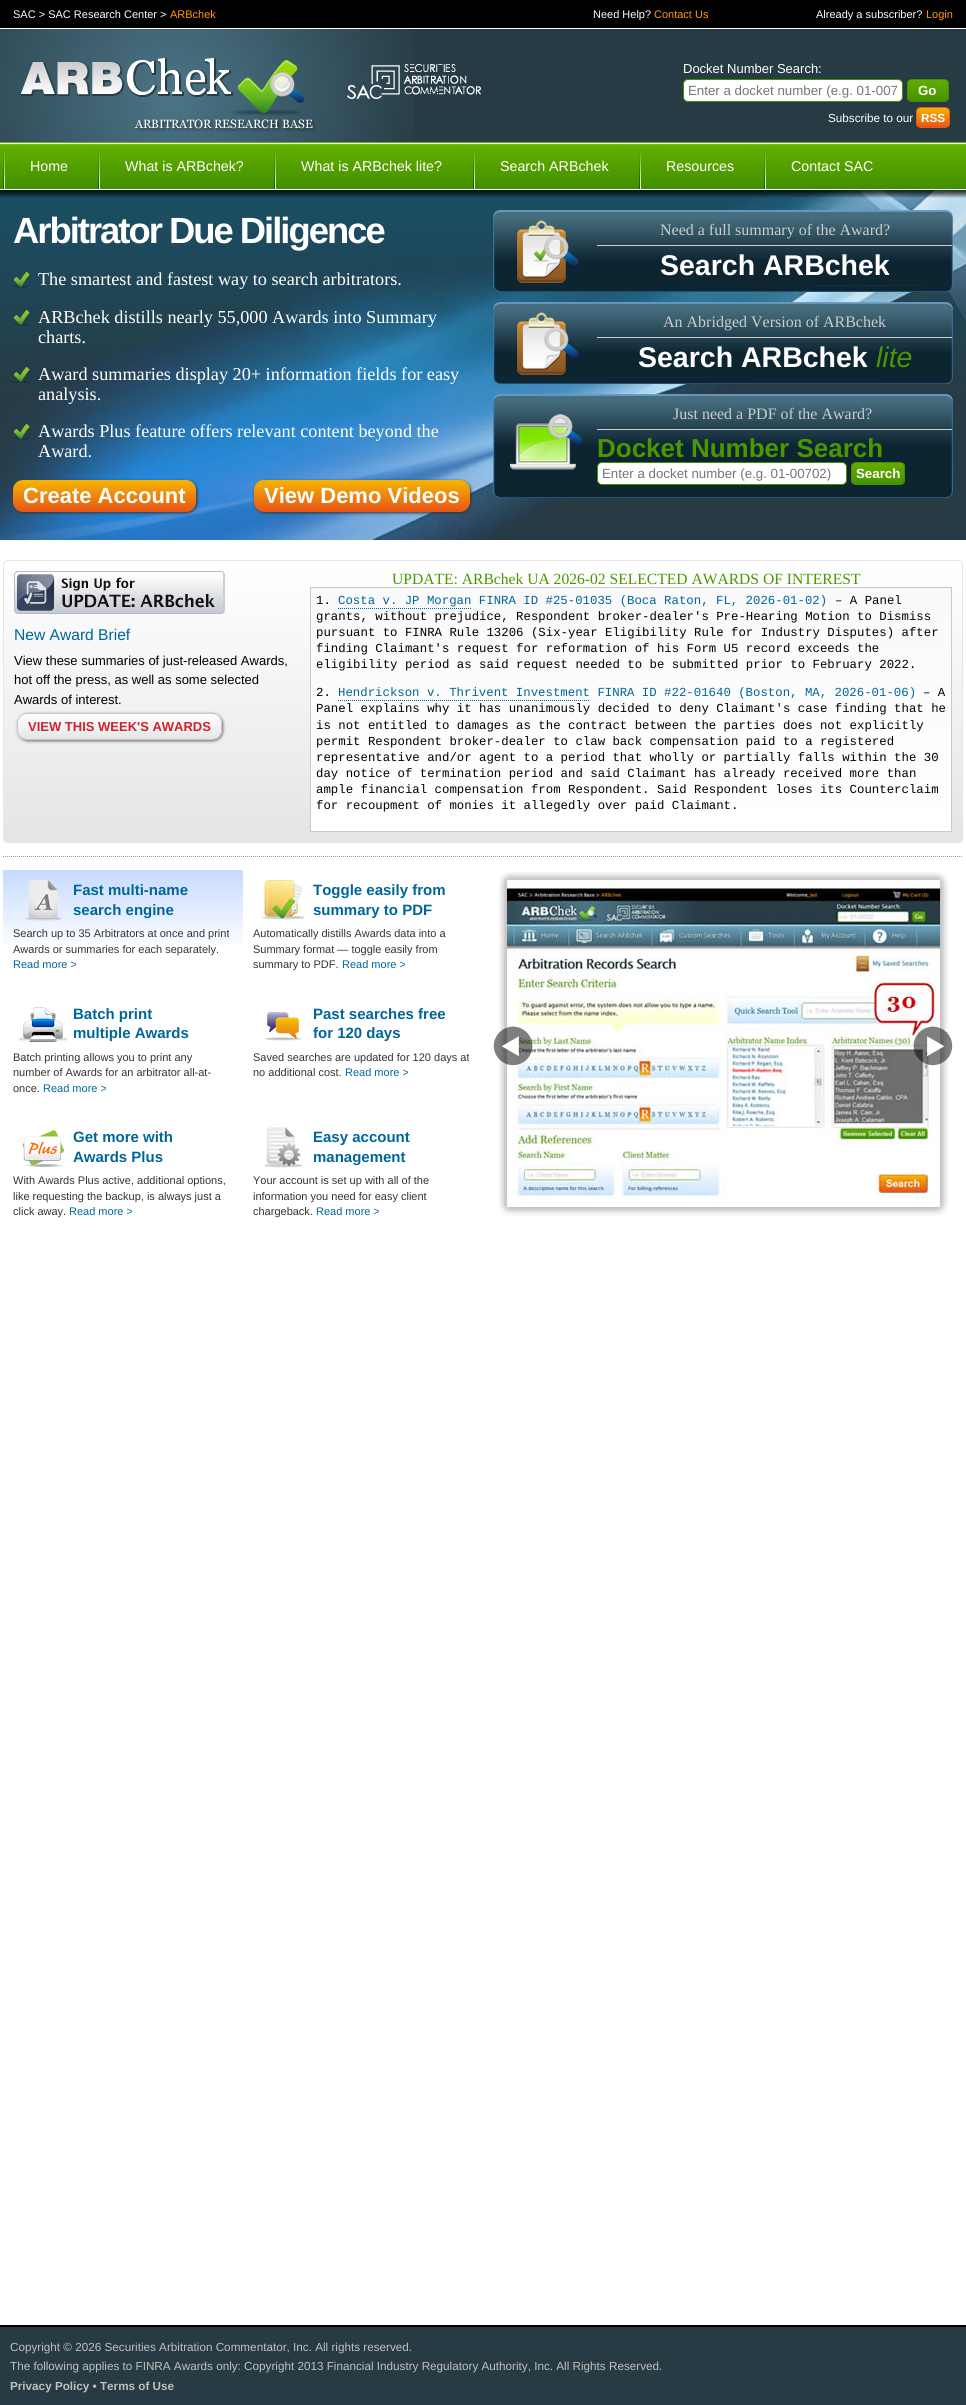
#include <cairo.h>
#include <math.h>
#include <stddef.h>

static cairo_t *ctx;

static void use_color(int r, int g, int b) {
    cairo_set_source_rgb(ctx, r / 255.0, g / 255.0, b / 255.0);
}

static void spaced_text(double x, double y, const char *s, double letter, double word) {
    cairo_move_to(ctx, x, y);
    while (*s) {
        char ch[5] = {0};
        int n = 0;
        do ch[n++] = *s++; while ((*s & 0xC0) == 0x80);
        cairo_show_text(ctx, ch);
        cairo_rel_move_to(ctx, letter + word * (*ch == ' '), 0);
    }
}

static void round_rect(double x, double y, double w, double h, double r) {
    cairo_new_sub_path(ctx);
    cairo_arc(ctx, x + w - r, y + h - r, r, 0, M_PI / 2);
    cairo_arc(ctx, x + r, y + h - r, r, M_PI / 2, M_PI);
    cairo_arc(ctx, x + r, y + r, r, M_PI, 1.5 * M_PI);
    cairo_arc(ctx, x + w - r, y + r, r, 1.5 * M_PI, 2 * M_PI);
    cairo_close_path(ctx);
}

static void shadow(double x, double y, double w, double h, double r, double blur, double alpha) {
    cairo_push_group_with_content(ctx, CAIRO_CONTENT_ALPHA);
    cairo_set_operator(ctx, CAIRO_OPERATOR_SOURCE);
    for (int i = 15; i >= -15 && fmin(w, h) + blur * i / 3 > 0; i -= 2) {
        double e = blur * i / 6;
        cairo_set_source_rgba(ctx, 0, 0, 0, alpha * erfc((i - 1) / 8.5) / 2);
        round_rect(x - e, y - e, w + 2 * e, h + 2 * e, fmax(0, fmin(r + e + blur * .6, fmin(w, h) / 2 + e)));
        cairo_fill(ctx);
    }
    cairo_pattern_t *soft = cairo_pop_group(ctx);
    cairo_mask(ctx, soft);
    cairo_pattern_destroy(soft);
}

static void picture(const char *path, double x, double y, double w, double h) {
    cairo_surface_t *image = cairo_image_surface_create_from_png(path);
    cairo_save(ctx);
    cairo_set_source_surface(ctx, image, x, y);
    cairo_rectangle(ctx, x, y, w, h);
    cairo_fill(ctx);
    cairo_restore(ctx);
    cairo_surface_destroy(image);
}

int main(void) {
    cairo_surface_t *surface = cairo_image_surface_create(CAIRO_FORMAT_RGB24, 966, 2405);
    ctx = cairo_create(surface);
    cairo_font_options_t *options = cairo_font_options_create();
    cairo_font_options_set_hint_metrics(options, CAIRO_HINT_METRICS_OFF);
    cairo_font_options_set_hint_style(options, CAIRO_HINT_STYLE_NONE);
    cairo_set_font_options(ctx, options);
    cairo_set_miter_limit(ctx, 4);
    cairo_pattern_t *gradient;
    use_color(255, 255, 255);
    cairo_paint(ctx);
    use_color(0, 0, 0);
    cairo_rectangle(ctx, 0, 0, 966, 28);
    cairo_fill(ctx);
    cairo_select_font_face(ctx, "Liberation Sans", CAIRO_FONT_SLANT_NORMAL, CAIRO_FONT_WEIGHT_NORMAL);
    cairo_set_font_size(ctx, 11);
    use_color(255, 255, 255);
    cairo_move_to(ctx, 13, 18);
    cairo_show_text(ctx, "SAC > SAC Research Center >");
    use_color(255, 153, 0);
    cairo_move_to(ctx, 170, 18);
    cairo_show_text(ctx, "ARBchek");
    use_color(255, 255, 255);
    cairo_move_to(ctx, 593, 18);
    cairo_show_text(ctx, "Need Help?");
    use_color(255, 153, 0);
    cairo_move_to(ctx, 654, 18);
    cairo_show_text(ctx, "Contact Us");
    use_color(255, 255, 255);
    cairo_move_to(ctx, 816, 18);
    cairo_show_text(ctx, "Already a subscriber?");
    use_color(255, 153, 0);
    cairo_move_to(ctx, 926, 18);
    cairo_show_text(ctx, "Login");
    use_color(38, 59, 68);
    cairo_rectangle(ctx, 415, 29, 551, 113);
    cairo_fill(ctx);
    picture("img1.png", 0, 29, 415, 113);
    picture("img2.png", 21, 58, 295, 74);
    picture("img3.png", 347, 64, 134, 35);
    cairo_set_font_size(ctx, 13);
    use_color(255, 255, 255);
    cairo_move_to(ctx, 683, 73);
    cairo_show_text(ctx, "Docket Number Search:");
    round_rect(683.5, 79.5, 219, 22, 4.5);
    cairo_fill_preserve(ctx);
    use_color(66, 143, 0);
    cairo_set_line_width(ctx, 1);
    cairo_stroke(ctx);
    cairo_set_font_size(ctx, 13.3);
    use_color(117, 117, 117);
    cairo_move_to(ctx, 688, 95);
    cairo_show_text(ctx, "Enter a docket number (e.g. 01-007");
    cairo_save(ctx);
    round_rect(907, 79, 42, 23, 5);
    cairo_clip(ctx);
    gradient = cairo_pattern_create_linear(928, 80, 928, 101);
    cairo_pattern_add_color_stop_rgba(gradient, 0, 0.388, 0.678, 0, 1);
    cairo_pattern_add_color_stop_rgba(gradient, 1, 0.271, 0.573, 0, 1);
    cairo_set_source(ctx, gradient);
    cairo_pattern_destroy(gradient);
    cairo_rectangle(ctx, 907, 80, 42, 21);
    cairo_fill(ctx);
    cairo_restore(ctx);
    round_rect(907.5, 79.5, 41, 22, 4.5);
    use_color(66, 143, 0);
    cairo_stroke(ctx);
    cairo_select_font_face(ctx, "Liberation Sans", CAIRO_FONT_SLANT_NORMAL, CAIRO_FONT_WEIGHT_BOLD);
    use_color(255, 255, 255);
    cairo_move_to(ctx, 918, 95);
    cairo_show_text(ctx, "Go");
    cairo_select_font_face(ctx, "Liberation Sans", CAIRO_FONT_SLANT_NORMAL, CAIRO_FONT_WEIGHT_NORMAL);
    cairo_set_font_size(ctx, 11.7);
    cairo_move_to(ctx, 828, 122);
    cairo_show_text(ctx, "Subscribe to our");
    cairo_save(ctx);
    round_rect(916, 107, 34, 21, 5);
    cairo_clip(ctx);
    gradient = cairo_pattern_create_linear(933, 108, 933, 127);
    cairo_pattern_add_color_stop_rgba(gradient, 0, 0.961, 0.71, 0.008, 1);
    cairo_pattern_add_color_stop_rgba(gradient, 1, 0.906, 0.333, 0.094, 1);
    cairo_set_source(ctx, gradient);
    cairo_pattern_destroy(gradient);
    cairo_rectangle(ctx, 916, 108, 34, 19);
    cairo_fill(ctx);
    cairo_restore(ctx);
    round_rect(916.5, 107.5, 33, 20, 4.5);
    use_color(231, 87, 24);
    cairo_stroke(ctx);
    cairo_select_font_face(ctx, "Liberation Sans", CAIRO_FONT_SLANT_NORMAL, CAIRO_FONT_WEIGHT_BOLD);
    use_color(255, 255, 255);
    cairo_move_to(ctx, 921, 122);
    cairo_show_text(ctx, "RSS");
    picture("img4.png", 0, 142, 966, 47);
    picture("img5.png", 3, 151, 2, 38);
    cairo_select_font_face(ctx, "Liberation Sans", CAIRO_FONT_SLANT_NORMAL, CAIRO_FONT_WEIGHT_NORMAL);
    cairo_set_font_size(ctx, 14.25);
    cairo_move_to(ctx, 30, 171);
    cairo_show_text(ctx, "Home");
    picture("img5.png", 98, 151, 2, 38);
    cairo_move_to(ctx, 125, 171);
    cairo_show_text(ctx, "What is ARBchek?");
    picture("img5.png", 274, 151, 2, 38);
    cairo_move_to(ctx, 301, 171);
    cairo_show_text(ctx, "What is ARBchek lite?");
    picture("img5.png", 473, 151, 2, 38);
    cairo_move_to(ctx, 500, 171);
    cairo_show_text(ctx, "Search ARBchek");
    picture("img5.png", 639, 151, 2, 38);
    cairo_move_to(ctx, 666, 171);
    cairo_show_text(ctx, "Resources");
    picture("img5.png", 764, 151, 2, 38);
    cairo_move_to(ctx, 791, 171);
    cairo_show_text(ctx, "Contact SAC");
    picture("img7.png", 0, 190, 966, 350);
    picture("img6.png", 0, 190, 966, 7);
    cairo_select_font_face(ctx, "Liberation Sans", CAIRO_FONT_SLANT_NORMAL, CAIRO_FONT_WEIGHT_BOLD);
    cairo_set_font_size(ctx, 36.4);
    spaced_text(13, 243, "Arbitrator Due Diligence", -2, 0);
    picture("img8.png", 13, 272, 17, 16);
    cairo_select_font_face(ctx, "Liberation Serif", CAIRO_FONT_SLANT_NORMAL, CAIRO_FONT_WEIGHT_NORMAL);
    cairo_set_font_size(ctx, 18.2);
    cairo_move_to(ctx, 38, 285);
    cairo_show_text(ctx, "The smartest and fastest way to search arbitrators.");
    picture("img9.png", 13, 310, 17, 16);
    cairo_move_to(ctx, 38, 323);
    cairo_show_text(ctx, "ARBchek distills nearly 55,000 Awards into Summary");
    cairo_move_to(ctx, 38, 343);
    cairo_show_text(ctx, "charts.");
    picture("img10.png", 13, 367, 17, 16);
    cairo_move_to(ctx, 38, 380);
    cairo_show_text(ctx, "Award summaries display 20+ information fields for easy");
    cairo_move_to(ctx, 38, 400);
    cairo_show_text(ctx, "analysis.");
    picture("img11.png", 13, 424, 17, 16);
    cairo_move_to(ctx, 38, 437);
    cairo_show_text(ctx, "Awards Plus feature offers relevant content beyond the");
    cairo_move_to(ctx, 38, 457);
    cairo_show_text(ctx, "Award.");
    use_color(51, 51, 51);
    shadow(14, 481, 183, 32, 10, 1.5, 1);
    gradient = cairo_pattern_create_linear(105, 480, 105, 512);
    cairo_pattern_add_color_stop_rgba(gradient, 0, 0.961, 0.71, 0.008, 1);
    cairo_pattern_add_color_stop_rgba(gradient, 1, 0.906, 0.333, 0.094, 1);
    cairo_set_source(ctx, gradient);
    cairo_pattern_destroy(gradient);
    round_rect(13, 480, 183, 32, 10);
    cairo_fill(ctx);
    cairo_select_font_face(ctx, "Liberation Sans", CAIRO_FONT_SLANT_NORMAL, CAIRO_FONT_WEIGHT_BOLD);
    cairo_set_font_size(ctx, 22);
    use_color(255, 255, 255);
    cairo_move_to(ctx, 23, 503);
    cairo_show_text(ctx, "Create Account");
    use_color(51, 51, 51);
    shadow(255, 481, 216, 32, 10, 1.5, 1);
    gradient = cairo_pattern_create_linear(362, 480, 362, 512);
    cairo_pattern_add_color_stop_rgba(gradient, 0, 0.961, 0.71, 0.008, 1);
    cairo_pattern_add_color_stop_rgba(gradient, 1, 0.906, 0.333, 0.094, 1);
    cairo_set_source(ctx, gradient);
    cairo_pattern_destroy(gradient);
    round_rect(254, 480, 216, 32, 10);
    cairo_fill(ctx);
    use_color(255, 255, 255);
    cairo_move_to(ctx, 264, 503);
    cairo_show_text(ctx, "View Demo Videos");
    picture("img12.png", 493, 285, 460, 7);
    picture("img13.png", 493, 210, 460, 75);
    picture("img14.png", 517, 220, 62, 63);
    use_color(204, 204, 204);
    cairo_rectangle(ctx, 597, 245, 355, 1);
    cairo_fill(ctx);
    cairo_select_font_face(ctx, "Liberation Serif", CAIRO_FONT_SLANT_NORMAL, CAIRO_FONT_WEIGHT_NORMAL);
    cairo_set_font_size(ctx, 16);
    cairo_move_to(ctx, 660, 235);
    cairo_show_text(ctx, "Need a full summary of the Award?");
    cairo_select_font_face(ctx, "Liberation Sans", CAIRO_FONT_SLANT_NORMAL, CAIRO_FONT_WEIGHT_BOLD);
    cairo_set_font_size(ctx, 28.5);
    use_color(255, 255, 255);
    cairo_move_to(ctx, 660, 275);
    cairo_show_text(ctx, "Search ARBchek");
    picture("img15.png", 493, 377, 460, 7);
    picture("img16.png", 493, 302, 460, 75);
    picture("img17.png", 517, 312, 62, 63);
    use_color(204, 204, 204);
    cairo_rectangle(ctx, 597, 337, 355, 1);
    cairo_fill(ctx);
    cairo_select_font_face(ctx, "Liberation Serif", CAIRO_FONT_SLANT_NORMAL, CAIRO_FONT_WEIGHT_NORMAL);
    cairo_set_font_size(ctx, 16);
    cairo_move_to(ctx, 663, 327);
    cairo_show_text(ctx, "An Abridged Version of ARBchek");
    cairo_select_font_face(ctx, "Liberation Sans", CAIRO_FONT_SLANT_NORMAL, CAIRO_FONT_WEIGHT_BOLD);
    cairo_set_font_size(ctx, 28.5);
    use_color(255, 255, 255);
    cairo_move_to(ctx, 638, 367);
    cairo_show_text(ctx, "Search ARBchek");
    cairo_select_font_face(ctx, "Liberation Sans", CAIRO_FONT_SLANT_ITALIC, CAIRO_FONT_WEIGHT_NORMAL);
    use_color(75, 151, 0);
    cairo_move_to(ctx, 876, 367);
    cairo_show_text(ctx, "lite");
    picture("img18.png", 493, 491, 460, 7);
    picture("img19.png", 493, 394, 460, 97);
    picture("img20.png", 510, 414, 73, 56);
    use_color(204, 204, 204);
    cairo_rectangle(ctx, 597, 429, 355, 1);
    cairo_fill(ctx);
    cairo_select_font_face(ctx, "Liberation Serif", CAIRO_FONT_SLANT_NORMAL, CAIRO_FONT_WEIGHT_NORMAL);
    cairo_set_font_size(ctx, 16);
    cairo_move_to(ctx, 673, 419);
    cairo_show_text(ctx, "Just need a PDF of the Award?");
    cairo_select_font_face(ctx, "Liberation Sans", CAIRO_FONT_SLANT_NORMAL, CAIRO_FONT_WEIGHT_BOLD);
    cairo_set_font_size(ctx, 26);
    use_color(75, 151, 0);
    cairo_move_to(ctx, 597, 457);
    cairo_show_text(ctx, "Docket Number Search");
    use_color(255, 255, 255);
    round_rect(597.5, 462.5, 249, 22, 4.5);
    cairo_fill_preserve(ctx);
    use_color(66, 143, 0);
    cairo_stroke(ctx);
    cairo_select_font_face(ctx, "Liberation Sans", CAIRO_FONT_SLANT_NORMAL, CAIRO_FONT_WEIGHT_NORMAL);
    cairo_set_font_size(ctx, 13.3);
    use_color(117, 117, 117);
    cairo_move_to(ctx, 602, 478);
    cairo_show_text(ctx, "Enter a docket number (e.g. 01-00702)");
    cairo_save(ctx);
    round_rect(851, 462, 54, 23, 5);
    cairo_clip(ctx);
    gradient = cairo_pattern_create_linear(878, 463, 878, 484);
    cairo_pattern_add_color_stop_rgba(gradient, 0, 0.388, 0.678, 0, 1);
    cairo_pattern_add_color_stop_rgba(gradient, 1, 0.271, 0.573, 0, 1);
    cairo_set_source(ctx, gradient);
    cairo_pattern_destroy(gradient);
    cairo_rectangle(ctx, 851, 463, 54, 21);
    cairo_fill(ctx);
    cairo_restore(ctx);
    round_rect(851.5, 462.5, 53, 22, 4.5);
    use_color(66, 143, 0);
    cairo_stroke(ctx);
    cairo_select_font_face(ctx, "Liberation Sans", CAIRO_FONT_SLANT_NORMAL, CAIRO_FONT_WEIGHT_BOLD);
    use_color(255, 255, 255);
    cairo_move_to(ctx, 856, 478);
    cairo_show_text(ctx, "Search");
    cairo_save(ctx);
    round_rect(3, 560, 960, 283, 5);
    cairo_clip(ctx);
    gradient = cairo_pattern_create_linear(483, 561, 483, 842);
    cairo_pattern_add_color_stop_rgba(gradient, 0, 1, 1, 1, 1);
    cairo_pattern_add_color_stop_rgba(gradient, 1, 0.898, 0.898, 0.898, 1);
    cairo_set_source(ctx, gradient);
    cairo_pattern_destroy(gradient);
    cairo_rectangle(ctx, 3, 561, 960, 281);
    cairo_fill(ctx);
    cairo_restore(ctx);
    round_rect(3.5, 560.5, 959, 282, 4.5);
    use_color(229, 229, 229);
    cairo_stroke(ctx);
    picture("img21.png", 14, 571, 211, 43);
    cairo_select_font_face(ctx, "Liberation Sans", CAIRO_FONT_SLANT_NORMAL, CAIRO_FONT_WEIGHT_NORMAL);
    cairo_set_font_size(ctx, 15.6);
    use_color(0, 102, 153);
    cairo_move_to(ctx, 14, 640);
    cairo_show_text(ctx, "New Award Brief");
    cairo_set_font_size(ctx, 13);
    use_color(0, 0, 0);
    cairo_move_to(ctx, 14, 665);
    cairo_show_text(ctx, "View these summaries of just-released Awards,");
    cairo_move_to(ctx, 14, 684);
    cairo_show_text(ctx, "hot off the press, as well as some selected");
    cairo_move_to(ctx, 14, 704);
    cairo_show_text(ctx, "Awards of interest.");
    use_color(102, 102, 102);
    shadow(18, 714, 205, 27, 10, 1.5, 1);
    cairo_save(ctx);
    round_rect(17, 713, 205, 27, 10);
    cairo_clip(ctx);
    gradient = cairo_pattern_create_linear(120, 714, 120, 739);
    cairo_pattern_add_color_stop_rgba(gradient, 0, 1, 1, 1, 1);
    cairo_pattern_add_color_stop_rgba(gradient, 1, 0.894, 0.898, 0.902, 1);
    cairo_set_source(ctx, gradient);
    cairo_pattern_destroy(gradient);
    cairo_rectangle(ctx, 17, 714, 205, 25);
    cairo_fill(ctx);
    cairo_restore(ctx);
    round_rect(17.5, 713.5, 204, 26, 9.5);
    use_color(199, 201, 204);
    cairo_stroke(ctx);
    cairo_select_font_face(ctx, "Liberation Sans", CAIRO_FONT_SLANT_NORMAL, CAIRO_FONT_WEIGHT_BOLD);
    use_color(210, 35, 42);
    cairo_move_to(ctx, 28, 731);
    cairo_show_text(ctx, "VIEW THIS WEEK'S AWARDS");
    cairo_select_font_face(ctx, "Liberation Serif", CAIRO_FONT_SLANT_NORMAL, CAIRO_FONT_WEIGHT_NORMAL);
    cairo_set_font_size(ctx, 15.6);
    use_color(75, 151, 0);
    cairo_move_to(ctx, 392, 584);
    cairo_show_text(ctx, "UPDATE: ARBchek UA 2026-02 SELECTED AWARDS OF INTEREST");
    gradient = cairo_pattern_create_linear(631, 588, 631, 831);
    cairo_pattern_add_color_stop_rgba(gradient, 0, 0.976, 0.976, 0.976, 1);
    cairo_pattern_add_color_stop_rgba(gradient, 1, 1, 1, 1, 1);
    cairo_set_source(ctx, gradient);
    cairo_pattern_destroy(gradient);
    cairo_rectangle(ctx, 311, 588, 640, 243);
    cairo_fill(ctx);
    cairo_rectangle(ctx, 310.5, 587.5, 641, 244);
    use_color(199, 201, 204);
    cairo_stroke(ctx);
    cairo_select_font_face(ctx, "Liberation Mono", CAIRO_FONT_SLANT_NORMAL, CAIRO_FONT_WEIGHT_NORMAL);
    cairo_set_font_size(ctx, 12.35);
    use_color(0, 0, 0);
    cairo_move_to(ctx, 316, 604);
    cairo_show_text(ctx, "1.");
    use_color(0, 102, 153);
    cairo_move_to(ctx, 338, 604);
    cairo_show_text(ctx, "Costa v. JP Morgan FINRA ID #25-01035 (Boca Raton, FL, 2026-01-02)");
    cairo_new_path(ctx);
    cairo_move_to(ctx, 338, 608.5);
    cairo_line_to(ctx, 472, 608.5);
    cairo_set_dash(ctx, (double[]){1, 1}, 2, 0);
    cairo_stroke(ctx);
    use_color(0, 0, 0);
    cairo_move_to(ctx, 835, 604);
    cairo_show_text(ctx, "– A Panel");
    cairo_move_to(ctx, 316, 620);
    cairo_show_text(ctx, "grants, without prejudice, Respondent broker-dealer's Pre-Hearing Motion to Dismiss");
    cairo_move_to(ctx, 316, 636);
    cairo_show_text(ctx, "pursuant to FINRA Rule 13206 (Six-year Eligibility Rule for Industry Disputes) after");
    cairo_move_to(ctx, 316, 652);
    cairo_show_text(ctx, "finding Claimant's request for reformation of his Form U5 record exceeds the");
    cairo_move_to(ctx, 316, 668);
    cairo_show_text(ctx, "eligibility period as said request needed to be submitted prior to February 2022.");
    cairo_move_to(ctx, 316, 696);
    cairo_show_text(ctx, "2.");
    use_color(0, 102, 153);
    cairo_move_to(ctx, 338, 696);
    cairo_show_text(ctx, "Hendrickson v. Thrivent Investment FINRA ID #22-01640 (Boston, MA, 2026-01-06)");
    cairo_new_path(ctx);
    cairo_move_to(ctx, 338, 700.5);
    cairo_line_to(ctx, 590, 700.5);
    cairo_stroke(ctx);
    use_color(0, 0, 0);
    cairo_move_to(ctx, 923, 696);
    cairo_show_text(ctx, "– A");
    cairo_move_to(ctx, 316, 712);
    cairo_show_text(ctx, "Panel explains why it has unanimously decided to deny Claimant's case finding that he");
    cairo_move_to(ctx, 316, 729);
    cairo_show_text(ctx, "is not entitled to damages as the contract between the parties does not explicitly");
    cairo_move_to(ctx, 316, 745);
    cairo_show_text(ctx, "permit Respondent broker-dealer to claw back compensation paid to a registered");
    cairo_move_to(ctx, 316, 761);
    cairo_show_text(ctx, "representative and/or agent to a period that wholly or partially falls within the 30");
    cairo_move_to(ctx, 316, 777);
    cairo_show_text(ctx, "day notice of termination period and said Claimant has already received more than");
    cairo_move_to(ctx, 316, 793);
    cairo_show_text(ctx, "ample financial compensation from Respondent. Said Respondent loses its Counterclaim");
    cairo_move_to(ctx, 316, 809);
    cairo_show_text(ctx, "for recoupment of monies it allegedly over paid Claimant.");
    cairo_new_path(ctx);
    cairo_move_to(ctx, 3, 856.5);
    cairo_line_to(ctx, 963, 856.5);
    use_color(153, 153, 153);
    cairo_stroke(ctx);
    picture("img22.png", 3, 870, 240, 75);
    picture("img23.png", 25, 880, 37, 41);
    cairo_select_font_face(ctx, "Liberation Sans", CAIRO_FONT_SLANT_NORMAL, CAIRO_FONT_WEIGHT_BOLD);
    cairo_set_font_size(ctx, 15);
    use_color(0, 102, 153);
    cairo_move_to(ctx, 73, 895);
    cairo_show_text(ctx, "Fast multi-name");
    cairo_move_to(ctx, 73, 915);
    cairo_show_text(ctx, "search engine");
    cairo_select_font_face(ctx, "Liberation Sans", CAIRO_FONT_SLANT_NORMAL, CAIRO_FONT_WEIGHT_NORMAL);
    cairo_set_font_size(ctx, 11);
    use_color(51, 51, 51);
    cairo_move_to(ctx, 13, 937);
    cairo_show_text(ctx, "Search up to 35 Arbitrators at once and print");
    cairo_move_to(ctx, 13, 953);
    cairo_show_text(ctx, "Awards or summaries for each separately.");
    use_color(0, 102, 153);
    cairo_move_to(ctx, 13, 968);
    cairo_show_text(ctx, "Read more >");
    picture("img24.png", 262, 880, 43, 40);
    cairo_select_font_face(ctx, "Liberation Sans", CAIRO_FONT_SLANT_NORMAL, CAIRO_FONT_WEIGHT_BOLD);
    cairo_set_font_size(ctx, 15);
    cairo_move_to(ctx, 313, 895);
    cairo_show_text(ctx, "Toggle easily from");
    cairo_move_to(ctx, 313, 915);
    cairo_show_text(ctx, "summary to PDF");
    cairo_select_font_face(ctx, "Liberation Sans", CAIRO_FONT_SLANT_NORMAL, CAIRO_FONT_WEIGHT_NORMAL);
    cairo_set_font_size(ctx, 11);
    use_color(51, 51, 51);
    cairo_move_to(ctx, 253, 937);
    cairo_show_text(ctx, "Automatically distills Awards data into a");
    cairo_move_to(ctx, 253, 953);
    cairo_show_text(ctx, "Summary format — toggle easily from");
    cairo_move_to(ctx, 253, 968);
    cairo_show_text(ctx, "summary to PDF.");
    use_color(0, 102, 153);
    cairo_move_to(ctx, 342, 968);
    cairo_show_text(ctx, "Read more >");
    picture("img25.png", 18, 1007, 50, 35);
    cairo_select_font_face(ctx, "Liberation Sans", CAIRO_FONT_SLANT_NORMAL, CAIRO_FONT_WEIGHT_BOLD);
    cairo_set_font_size(ctx, 15);
    cairo_move_to(ctx, 73, 1019);
    cairo_show_text(ctx, "Batch print");
    cairo_move_to(ctx, 73, 1038);
    cairo_show_text(ctx, "multiple Awards");
    cairo_select_font_face(ctx, "Liberation Sans", CAIRO_FONT_SLANT_NORMAL, CAIRO_FONT_WEIGHT_NORMAL);
    cairo_set_font_size(ctx, 11);
    use_color(51, 51, 51);
    cairo_move_to(ctx, 13, 1061);
    cairo_show_text(ctx, "Batch printing allows you to print any");
    cairo_move_to(ctx, 13, 1076);
    cairo_show_text(ctx, "number of Awards for an arbitrator all-at-");
    cairo_move_to(ctx, 13, 1092);
    cairo_show_text(ctx, "once.");
    use_color(0, 102, 153);
    cairo_move_to(ctx, 43, 1092);
    cairo_show_text(ctx, "Read more >");
    picture("img26.png", 265, 1012, 36, 29);
    cairo_select_font_face(ctx, "Liberation Sans", CAIRO_FONT_SLANT_NORMAL, CAIRO_FONT_WEIGHT_BOLD);
    cairo_set_font_size(ctx, 15);
    cairo_move_to(ctx, 313, 1019);
    cairo_show_text(ctx, "Past searches free");
    cairo_move_to(ctx, 313, 1038);
    cairo_show_text(ctx, "for 120 days");
    cairo_select_font_face(ctx, "Liberation Sans", CAIRO_FONT_SLANT_NORMAL, CAIRO_FONT_WEIGHT_NORMAL);
    cairo_set_font_size(ctx, 11);
    use_color(51, 51, 51);
    cairo_move_to(ctx, 253, 1061);
    cairo_show_text(ctx, "Saved searches are updated for 120 days at");
    cairo_move_to(ctx, 253, 1076);
    cairo_show_text(ctx, "no additional cost.");
    use_color(0, 102, 153);
    cairo_move_to(ctx, 345, 1076);
    cairo_show_text(ctx, "Read more >");
    picture("img27.png", 22, 1130, 42, 37);
    cairo_select_font_face(ctx, "Liberation Sans", CAIRO_FONT_SLANT_NORMAL, CAIRO_FONT_WEIGHT_BOLD);
    cairo_set_font_size(ctx, 15);
    cairo_move_to(ctx, 73, 1142);
    cairo_show_text(ctx, "Get more with");
    cairo_move_to(ctx, 73, 1162);
    cairo_show_text(ctx, "Awards Plus");
    cairo_select_font_face(ctx, "Liberation Sans", CAIRO_FONT_SLANT_NORMAL, CAIRO_FONT_WEIGHT_NORMAL);
    cairo_set_font_size(ctx, 11);
    use_color(51, 51, 51);
    cairo_move_to(ctx, 13, 1184);
    cairo_show_text(ctx, "With Awards Plus active, additional options,");
    cairo_move_to(ctx, 13, 1200);
    cairo_show_text(ctx, "like requesting the backup, is always just a");
    cairo_move_to(ctx, 13, 1215);
    cairo_show_text(ctx, "click away.");
    use_color(0, 102, 153);
    cairo_move_to(ctx, 69, 1215);
    cairo_show_text(ctx, "Read more >");
    picture("img28.png", 264, 1127, 39, 41);
    cairo_select_font_face(ctx, "Liberation Sans", CAIRO_FONT_SLANT_NORMAL, CAIRO_FONT_WEIGHT_BOLD);
    cairo_set_font_size(ctx, 15);
    cairo_move_to(ctx, 313, 1142);
    cairo_show_text(ctx, "Easy account");
    cairo_move_to(ctx, 313, 1162);
    cairo_show_text(ctx, "management");
    cairo_select_font_face(ctx, "Liberation Sans", CAIRO_FONT_SLANT_NORMAL, CAIRO_FONT_WEIGHT_NORMAL);
    cairo_set_font_size(ctx, 11);
    use_color(51, 51, 51);
    cairo_move_to(ctx, 253, 1184);
    cairo_show_text(ctx, "Your account is set up with all of the");
    cairo_move_to(ctx, 253, 1200);
    cairo_show_text(ctx, "information you need for easy client");
    cairo_move_to(ctx, 253, 1215);
    cairo_show_text(ctx, "chargeback.");
    use_color(0, 102, 153);
    cairo_move_to(ctx, 316, 1215);
    cairo_show_text(ctx, "Read more >");
    picture("img29.png", 499, 872, 450, 344);
    picture("img30.png", 493, 1026, 40, 40);
    picture("img31.png", 913, 1026, 40, 40);
    use_color(38, 59, 68);
    cairo_rectangle(ctx, 0, 2327, 966, 78);
    cairo_fill(ctx);
    use_color(0, 0, 0);
    cairo_rectangle(ctx, 0, 2325, 966, 2);
    cairo_fill(ctx);
    cairo_set_font_size(ctx, 11.7);
    use_color(192, 192, 192);
    cairo_move_to(ctx, 10, 2351);
    cairo_show_text(ctx, "Copyright © 2026 Securities Arbitration Commentator, Inc. All rights reserved.");
    cairo_move_to(ctx, 10, 2370);
    cairo_show_text(ctx, "The following applies to FINRA Awards only: Copyright 2013 Financial Industry Regulatory Authority, Inc. All Rights Reserved.");
    cairo_select_font_face(ctx, "Liberation Sans", CAIRO_FONT_SLANT_NORMAL, CAIRO_FONT_WEIGHT_BOLD);
    cairo_move_to(ctx, 10, 2390);
    cairo_show_text(ctx, "Privacy Policy • Terms of Use");
    cairo_surface_write_to_png(surface, "result.png");
    cairo_font_options_destroy(options);
    cairo_destroy(ctx);
    cairo_surface_destroy(surface);
    return 0;
}
